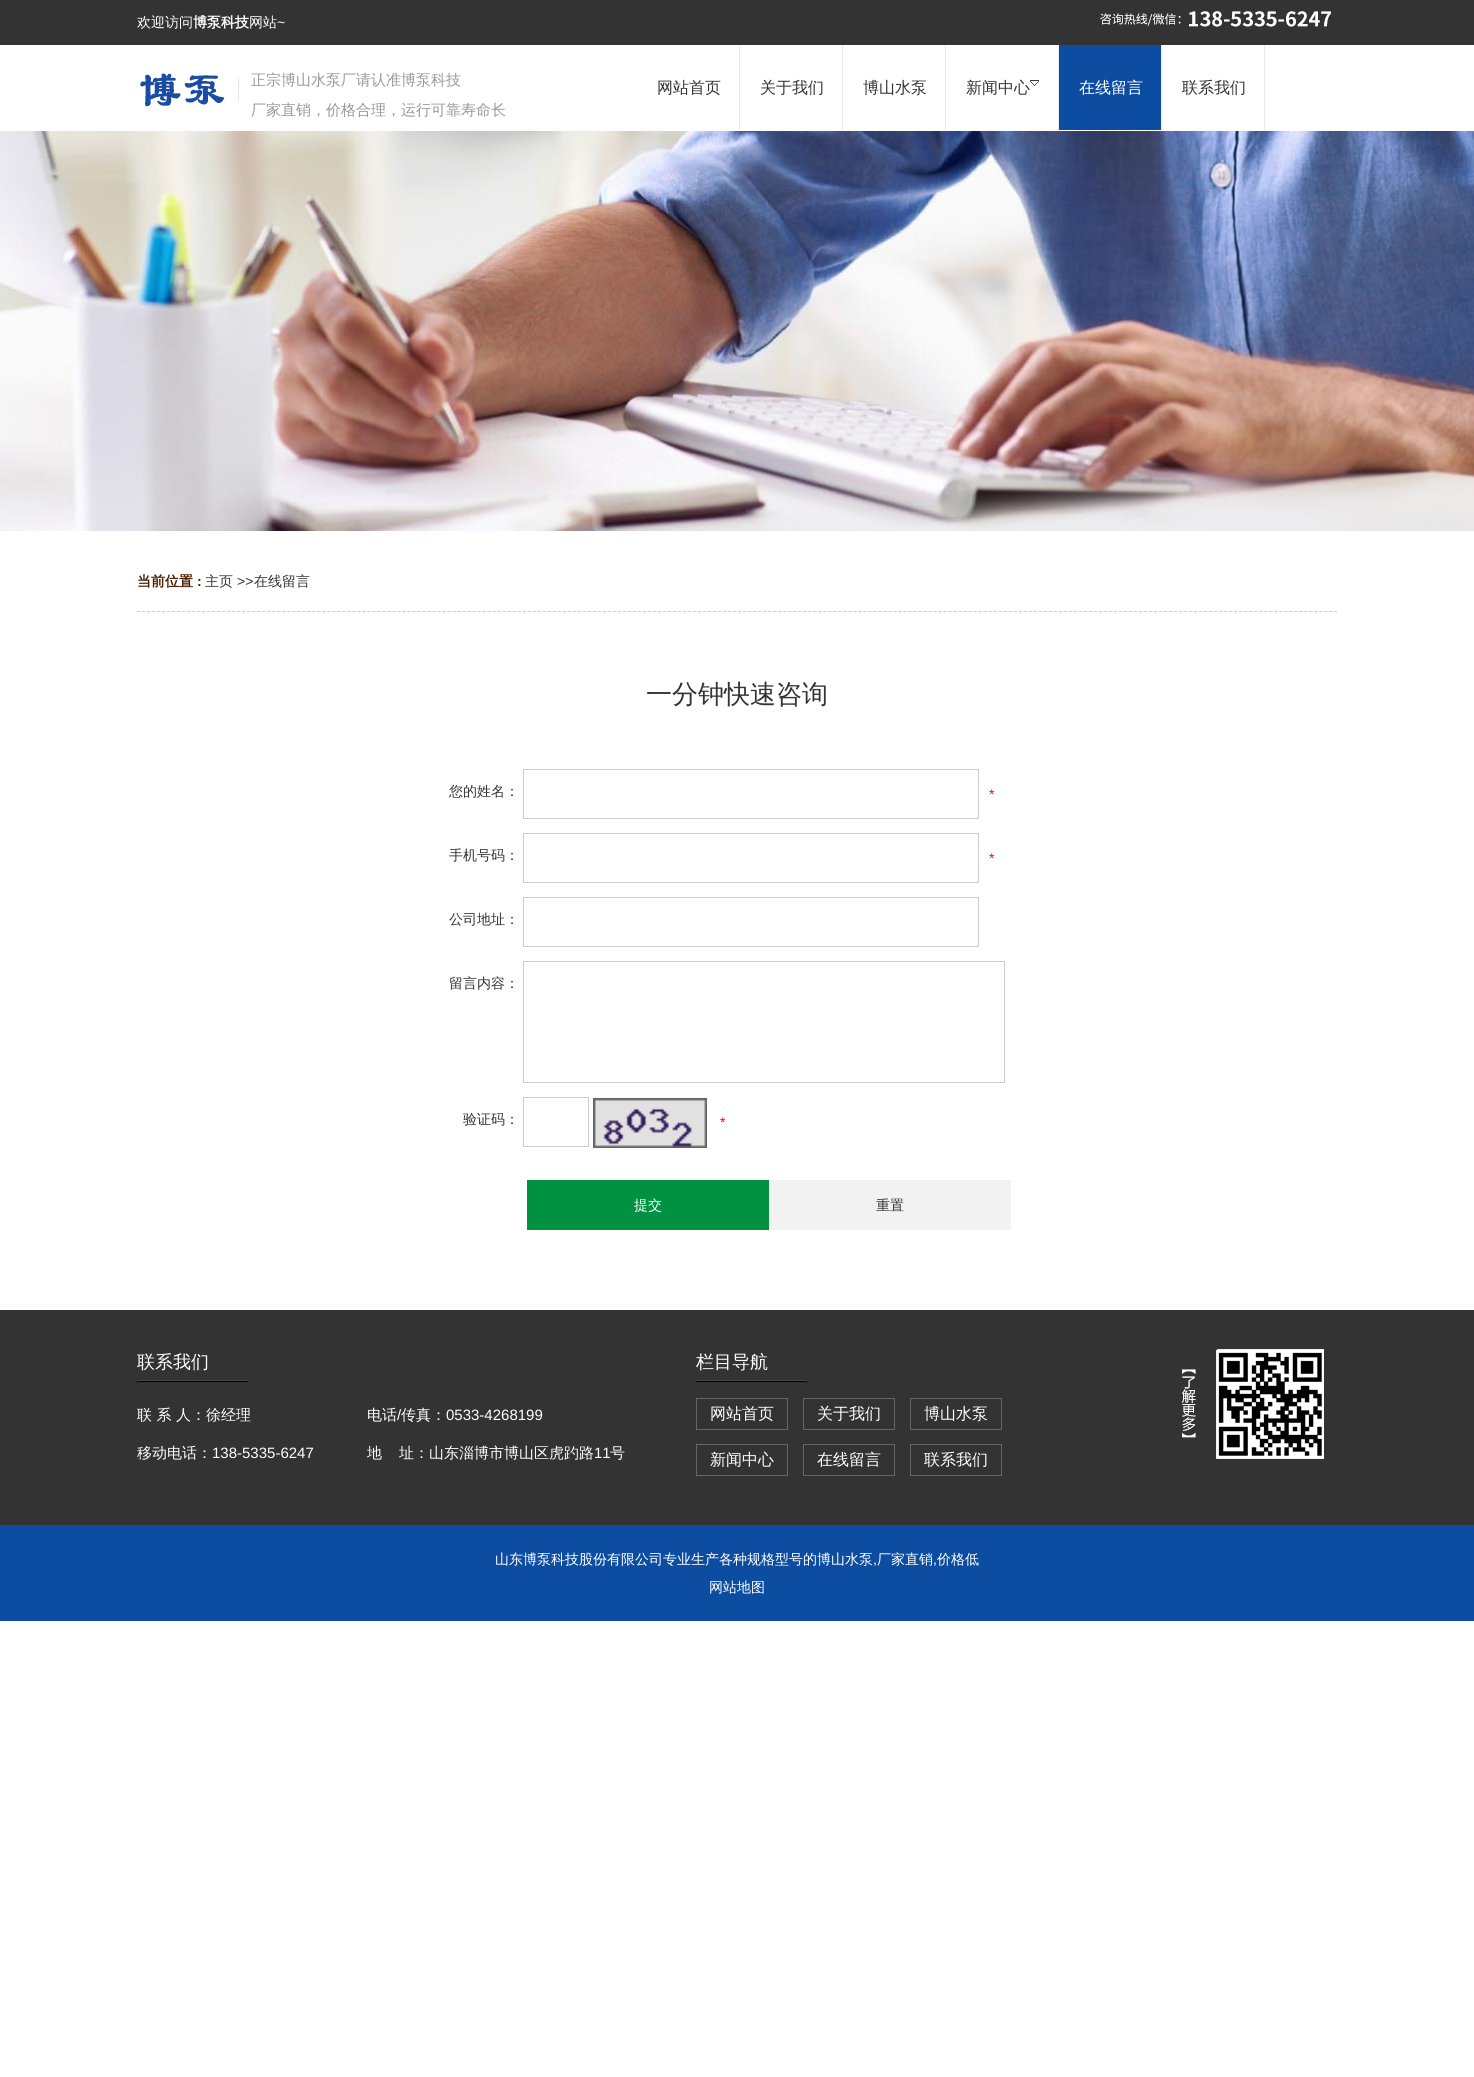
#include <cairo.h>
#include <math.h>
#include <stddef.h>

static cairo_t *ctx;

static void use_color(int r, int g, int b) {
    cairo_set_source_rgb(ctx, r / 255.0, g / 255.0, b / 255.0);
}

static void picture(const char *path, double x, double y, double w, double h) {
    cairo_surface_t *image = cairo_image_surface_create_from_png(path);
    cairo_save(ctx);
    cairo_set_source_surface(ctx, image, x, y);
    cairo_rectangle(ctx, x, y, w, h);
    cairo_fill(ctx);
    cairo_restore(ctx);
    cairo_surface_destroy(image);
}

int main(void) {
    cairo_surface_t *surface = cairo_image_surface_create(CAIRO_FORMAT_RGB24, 1474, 2077);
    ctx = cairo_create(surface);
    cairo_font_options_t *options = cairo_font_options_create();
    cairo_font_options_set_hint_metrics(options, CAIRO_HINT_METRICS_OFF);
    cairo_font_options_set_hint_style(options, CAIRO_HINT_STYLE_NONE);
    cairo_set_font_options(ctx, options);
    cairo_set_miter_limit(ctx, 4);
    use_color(255, 255, 255);
    cairo_paint(ctx);
    use_color(51, 51, 51);
    cairo_rectangle(ctx, 0, 0, 1474, 45);
    cairo_fill(ctx);
    cairo_select_font_face(ctx, "WenQuanYi Zen Hei Medium", CAIRO_FONT_SLANT_NORMAL, CAIRO_FONT_WEIGHT_NORMAL);
    cairo_set_font_size(ctx, 14);
    use_color(255, 255, 255);
    cairo_move_to(ctx, 137, 27);
    cairo_show_text(ctx, "欢迎访问");
    cairo_select_font_face(ctx, "WenQuanYi Zen Hei", CAIRO_FONT_SLANT_NORMAL, CAIRO_FONT_WEIGHT_BOLD);
    cairo_move_to(ctx, 193, 27);
    cairo_show_text(ctx, "博泵科技");
    cairo_select_font_face(ctx, "WenQuanYi Zen Hei Medium", CAIRO_FONT_SLANT_NORMAL, CAIRO_FONT_WEIGHT_NORMAL);
    cairo_move_to(ctx, 249, 27);
    cairo_show_text(ctx, "网站");
    cairo_select_font_face(ctx, "Liberation Sans", CAIRO_FONT_SLANT_NORMAL, CAIRO_FONT_WEIGHT_NORMAL);
    cairo_move_to(ctx, 277, 27);
    cairo_show_text(ctx, "~");
    picture("img1.png", 1100, 11, 231, 16);
    picture("img2.png", 140, 73, 99, 34);
    cairo_select_font_face(ctx, "WenQuanYi Zen Hei Medium", CAIRO_FONT_SLANT_NORMAL, CAIRO_FONT_WEIGHT_NORMAL);
    cairo_set_font_size(ctx, 15);
    use_color(153, 153, 153);
    cairo_move_to(ctx, 251, 85);
    cairo_show_text(ctx, "正宗博山水泵厂请认准博泵科技");
    cairo_move_to(ctx, 251, 115);
    cairo_show_text(ctx, "厂家直销，价格合理，运行可靠寿命长");
    use_color(233, 233, 233);
    cairo_rectangle(ctx, 739, 45, 1, 85);
    cairo_fill(ctx);
    cairo_set_font_size(ctx, 16);
    use_color(51, 51, 51);
    cairo_move_to(ctx, 657, 93);
    cairo_show_text(ctx, "网站首页");
    use_color(233, 233, 233);
    cairo_rectangle(ctx, 842, 45, 1, 85);
    cairo_fill(ctx);
    use_color(51, 51, 51);
    cairo_move_to(ctx, 760, 93);
    cairo_show_text(ctx, "关于我们");
    use_color(233, 233, 233);
    cairo_rectangle(ctx, 945, 45, 1, 85);
    cairo_fill(ctx);
    use_color(51, 51, 51);
    cairo_move_to(ctx, 863, 93);
    cairo_show_text(ctx, "博山水泵");
    use_color(233, 233, 233);
    cairo_rectangle(ctx, 1058, 45, 1, 85);
    cairo_fill(ctx);
    use_color(51, 51, 51);
    cairo_move_to(ctx, 966, 93);
    cairo_show_text(ctx, "新闻中心");
    picture("img3.png", 1030, 80, 9, 6);
    use_color(12, 77, 162);
    cairo_rectangle(ctx, 1059, 45, 102, 85);
    cairo_fill(ctx);
    use_color(233, 233, 233);
    cairo_rectangle(ctx, 1161, 45, 1, 85);
    cairo_fill(ctx);
    use_color(255, 255, 255);
    cairo_move_to(ctx, 1079, 93);
    cairo_show_text(ctx, "在线留言");
    use_color(233, 233, 233);
    cairo_rectangle(ctx, 1264, 45, 1, 85);
    cairo_fill(ctx);
    use_color(51, 51, 51);
    cairo_move_to(ctx, 1182, 93);
    cairo_show_text(ctx, "联系我们");
    picture("img4.png", 0, 131, 1474, 400);
    cairo_new_path(ctx);
    cairo_move_to(ctx, 137, 611.5);
    cairo_line_to(ctx, 1337, 611.5);
    use_color(204, 204, 204);
    cairo_set_line_width(ctx, 1);
    cairo_set_dash(ctx, (double[]){3, 2.01}, 2, 0);
    cairo_stroke(ctx);
    cairo_select_font_face(ctx, "WenQuanYi Zen Hei", CAIRO_FONT_SLANT_NORMAL, CAIRO_FONT_WEIGHT_BOLD);
    cairo_set_font_size(ctx, 14);
    use_color(74, 29, 0);
    cairo_move_to(ctx, 137, 586);
    cairo_show_text(ctx, "当前位置");
    cairo_select_font_face(ctx, "Liberation Sans", CAIRO_FONT_SLANT_NORMAL, CAIRO_FONT_WEIGHT_BOLD);
    cairo_move_to(ctx, 197, 586);
    cairo_show_text(ctx, ":");
    cairo_select_font_face(ctx, "WenQuanYi Zen Hei Medium", CAIRO_FONT_SLANT_NORMAL, CAIRO_FONT_WEIGHT_NORMAL);
    use_color(51, 51, 51);
    cairo_move_to(ctx, 205, 586);
    cairo_show_text(ctx, "主页");
    cairo_select_font_face(ctx, "Liberation Sans", CAIRO_FONT_SLANT_NORMAL, CAIRO_FONT_WEIGHT_NORMAL);
    cairo_move_to(ctx, 237, 586);
    cairo_show_text(ctx, ">>");
    cairo_select_font_face(ctx, "WenQuanYi Zen Hei Medium", CAIRO_FONT_SLANT_NORMAL, CAIRO_FONT_WEIGHT_NORMAL);
    cairo_move_to(ctx, 254, 586);
    cairo_show_text(ctx, "在线留言");
    cairo_set_font_size(ctx, 26);
    cairo_move_to(ctx, 646, 703);
    cairo_show_text(ctx, "一分钟快速咨询");
    cairo_set_font_size(ctx, 14);
    cairo_move_to(ctx, 449, 796);
    cairo_show_text(ctx, "您的姓名：");
    cairo_rectangle(ctx, 523.5, 769.5, 455, 49);
    use_color(204, 204, 204);
    cairo_set_dash(ctx, NULL, 0, 0);
    cairo_stroke(ctx);
    cairo_select_font_face(ctx, "Liberation Sans", CAIRO_FONT_SLANT_NORMAL, CAIRO_FONT_WEIGHT_NORMAL);
    use_color(255, 0, 0);
    cairo_move_to(ctx, 989, 799);
    cairo_show_text(ctx, "*");
    cairo_select_font_face(ctx, "WenQuanYi Zen Hei Medium", CAIRO_FONT_SLANT_NORMAL, CAIRO_FONT_WEIGHT_NORMAL);
    use_color(51, 51, 51);
    cairo_move_to(ctx, 449, 860);
    cairo_show_text(ctx, "手机号码：");
    cairo_rectangle(ctx, 523.5, 833.5, 455, 49);
    use_color(204, 204, 204);
    cairo_stroke(ctx);
    cairo_select_font_face(ctx, "Liberation Sans", CAIRO_FONT_SLANT_NORMAL, CAIRO_FONT_WEIGHT_NORMAL);
    use_color(255, 0, 0);
    cairo_move_to(ctx, 989, 863);
    cairo_show_text(ctx, "*");
    cairo_select_font_face(ctx, "WenQuanYi Zen Hei Medium", CAIRO_FONT_SLANT_NORMAL, CAIRO_FONT_WEIGHT_NORMAL);
    use_color(51, 51, 51);
    cairo_move_to(ctx, 449, 924);
    cairo_show_text(ctx, "公司地址：");
    cairo_rectangle(ctx, 523.5, 897.5, 455, 49);
    use_color(204, 204, 204);
    cairo_stroke(ctx);
    use_color(51, 51, 51);
    cairo_move_to(ctx, 449, 988);
    cairo_show_text(ctx, "留言内容：");
    cairo_rectangle(ctx, 523.5, 961.5, 481, 121);
    use_color(204, 204, 204);
    cairo_stroke(ctx);
    use_color(51, 51, 51);
    cairo_move_to(ctx, 463, 1124);
    cairo_show_text(ctx, "验证码：");
    cairo_rectangle(ctx, 523.5, 1097.5, 65, 49);
    use_color(204, 204, 204);
    cairo_stroke(ctx);
    picture("img5.png", 593, 1098, 114, 50);
    cairo_select_font_face(ctx, "Liberation Sans", CAIRO_FONT_SLANT_NORMAL, CAIRO_FONT_WEIGHT_NORMAL);
    use_color(255, 0, 0);
    cairo_move_to(ctx, 720, 1127);
    cairo_show_text(ctx, "*");
    use_color(0, 146, 65);
    cairo_rectangle(ctx, 527, 1180, 242, 50);
    cairo_fill(ctx);
    cairo_select_font_face(ctx, "WenQuanYi Zen Hei Medium", CAIRO_FONT_SLANT_NORMAL, CAIRO_FONT_WEIGHT_NORMAL);
    use_color(255, 255, 255);
    cairo_move_to(ctx, 634, 1210);
    cairo_show_text(ctx, "提交");
    use_color(242, 242, 242);
    cairo_rectangle(ctx, 769, 1180, 242, 50);
    cairo_fill(ctx);
    use_color(51, 51, 51);
    cairo_move_to(ctx, 876, 1210);
    cairo_show_text(ctx, "重置");
    cairo_rectangle(ctx, 0, 1310, 1474, 215);
    cairo_fill(ctx);
    cairo_set_font_size(ctx, 18);
    use_color(255, 255, 255);
    cairo_move_to(ctx, 137, 1368);
    cairo_show_text(ctx, "联系我们");
    picture("img6.png", 137, 1380, 111, 2);
    cairo_set_font_size(ctx, 15);
    cairo_move_to(ctx, 137, 1420);
    cairo_show_text(ctx, "联 系 人：徐经理");
    cairo_move_to(ctx, 137, 1458);
    cairo_show_text(ctx, "移动电话：");
    cairo_select_font_face(ctx, "Liberation Sans", CAIRO_FONT_SLANT_NORMAL, CAIRO_FONT_WEIGHT_NORMAL);
    cairo_move_to(ctx, 212, 1458);
    cairo_show_text(ctx, "138-5335-6247");
    cairo_select_font_face(ctx, "WenQuanYi Zen Hei Medium", CAIRO_FONT_SLANT_NORMAL, CAIRO_FONT_WEIGHT_NORMAL);
    cairo_move_to(ctx, 367, 1420);
    cairo_show_text(ctx, "电话");
    cairo_select_font_face(ctx, "Liberation Sans", CAIRO_FONT_SLANT_NORMAL, CAIRO_FONT_WEIGHT_NORMAL);
    cairo_move_to(ctx, 397, 1420);
    cairo_show_text(ctx, "/");
    cairo_select_font_face(ctx, "WenQuanYi Zen Hei Medium", CAIRO_FONT_SLANT_NORMAL, CAIRO_FONT_WEIGHT_NORMAL);
    cairo_move_to(ctx, 401, 1420);
    cairo_show_text(ctx, "传真：");
    cairo_select_font_face(ctx, "Liberation Sans", CAIRO_FONT_SLANT_NORMAL, CAIRO_FONT_WEIGHT_NORMAL);
    cairo_move_to(ctx, 446, 1420);
    cairo_show_text(ctx, "0533-4268199");
    cairo_select_font_face(ctx, "WenQuanYi Zen Hei Medium", CAIRO_FONT_SLANT_NORMAL, CAIRO_FONT_WEIGHT_NORMAL);
    cairo_move_to(ctx, 367, 1458);
    cairo_show_text(ctx, "地");
    cairo_move_to(ctx, 399, 1458);
    cairo_show_text(ctx, "址：山东淄博市博山区虎趵路");
    cairo_select_font_face(ctx, "Liberation Sans", CAIRO_FONT_SLANT_NORMAL, CAIRO_FONT_WEIGHT_NORMAL);
    cairo_move_to(ctx, 594, 1458);
    cairo_show_text(ctx, "11");
    cairo_select_font_face(ctx, "WenQuanYi Zen Hei Medium", CAIRO_FONT_SLANT_NORMAL, CAIRO_FONT_WEIGHT_NORMAL);
    cairo_move_to(ctx, 610, 1458);
    cairo_show_text(ctx, "号");
    cairo_set_font_size(ctx, 18);
    cairo_move_to(ctx, 696, 1368);
    cairo_show_text(ctx, "栏目导航");
    picture("img6.png", 696, 1380, 111, 2);
    cairo_rectangle(ctx, 696.5, 1398.5, 91, 31);
    use_color(102, 102, 102);
    cairo_stroke(ctx);
    cairo_set_font_size(ctx, 16);
    use_color(255, 255, 255);
    cairo_move_to(ctx, 710, 1419);
    cairo_show_text(ctx, "网站首页");
    cairo_rectangle(ctx, 803.5, 1398.5, 91, 31);
    use_color(102, 102, 102);
    cairo_stroke(ctx);
    use_color(255, 255, 255);
    cairo_move_to(ctx, 817, 1419);
    cairo_show_text(ctx, "关于我们");
    cairo_rectangle(ctx, 910.5, 1398.5, 91, 31);
    use_color(102, 102, 102);
    cairo_stroke(ctx);
    use_color(255, 255, 255);
    cairo_move_to(ctx, 924, 1419);
    cairo_show_text(ctx, "博山水泵");
    cairo_rectangle(ctx, 696.5, 1444.5, 91, 31);
    use_color(102, 102, 102);
    cairo_stroke(ctx);
    use_color(255, 255, 255);
    cairo_move_to(ctx, 710, 1465);
    cairo_show_text(ctx, "新闻中心");
    cairo_rectangle(ctx, 803.5, 1444.5, 91, 31);
    use_color(102, 102, 102);
    cairo_stroke(ctx);
    use_color(255, 255, 255);
    cairo_move_to(ctx, 817, 1465);
    cairo_show_text(ctx, "在线留言");
    cairo_rectangle(ctx, 910.5, 1444.5, 91, 31);
    use_color(102, 102, 102);
    cairo_stroke(ctx);
    use_color(255, 255, 255);
    cairo_move_to(ctx, 924, 1465);
    cairo_show_text(ctx, "联系我们");
    picture("img7.png", 1178, 1345, 146, 119);
    use_color(12, 77, 162);
    cairo_rectangle(ctx, 0, 1525, 1474, 96);
    cairo_fill(ctx);
    cairo_set_font_size(ctx, 14);
    use_color(255, 255, 255);
    cairo_move_to(ctx, 495, 1564);
    cairo_show_text(ctx, "山东博泵科技股份有限公司专业生产各种规格型号的博山水泵");
    cairo_select_font_face(ctx, "Liberation Sans", CAIRO_FONT_SLANT_NORMAL, CAIRO_FONT_WEIGHT_NORMAL);
    cairo_move_to(ctx, 873, 1564);
    cairo_show_text(ctx, ",");
    cairo_select_font_face(ctx, "WenQuanYi Zen Hei Medium", CAIRO_FONT_SLANT_NORMAL, CAIRO_FONT_WEIGHT_NORMAL);
    cairo_move_to(ctx, 877, 1564);
    cairo_show_text(ctx, "厂家直销");
    cairo_select_font_face(ctx, "Liberation Sans", CAIRO_FONT_SLANT_NORMAL, CAIRO_FONT_WEIGHT_NORMAL);
    cairo_move_to(ctx, 933, 1564);
    cairo_show_text(ctx, ",");
    cairo_select_font_face(ctx, "WenQuanYi Zen Hei Medium", CAIRO_FONT_SLANT_NORMAL, CAIRO_FONT_WEIGHT_NORMAL);
    cairo_move_to(ctx, 937, 1564);
    cairo_show_text(ctx, "价格低");
    cairo_move_to(ctx, 709, 1592);
    cairo_show_text(ctx, "网站地图");
    cairo_surface_write_to_png(surface, "result.png");
    cairo_font_options_destroy(options);
    cairo_destroy(ctx);
    cairo_surface_destroy(surface);
    return 0;
}
